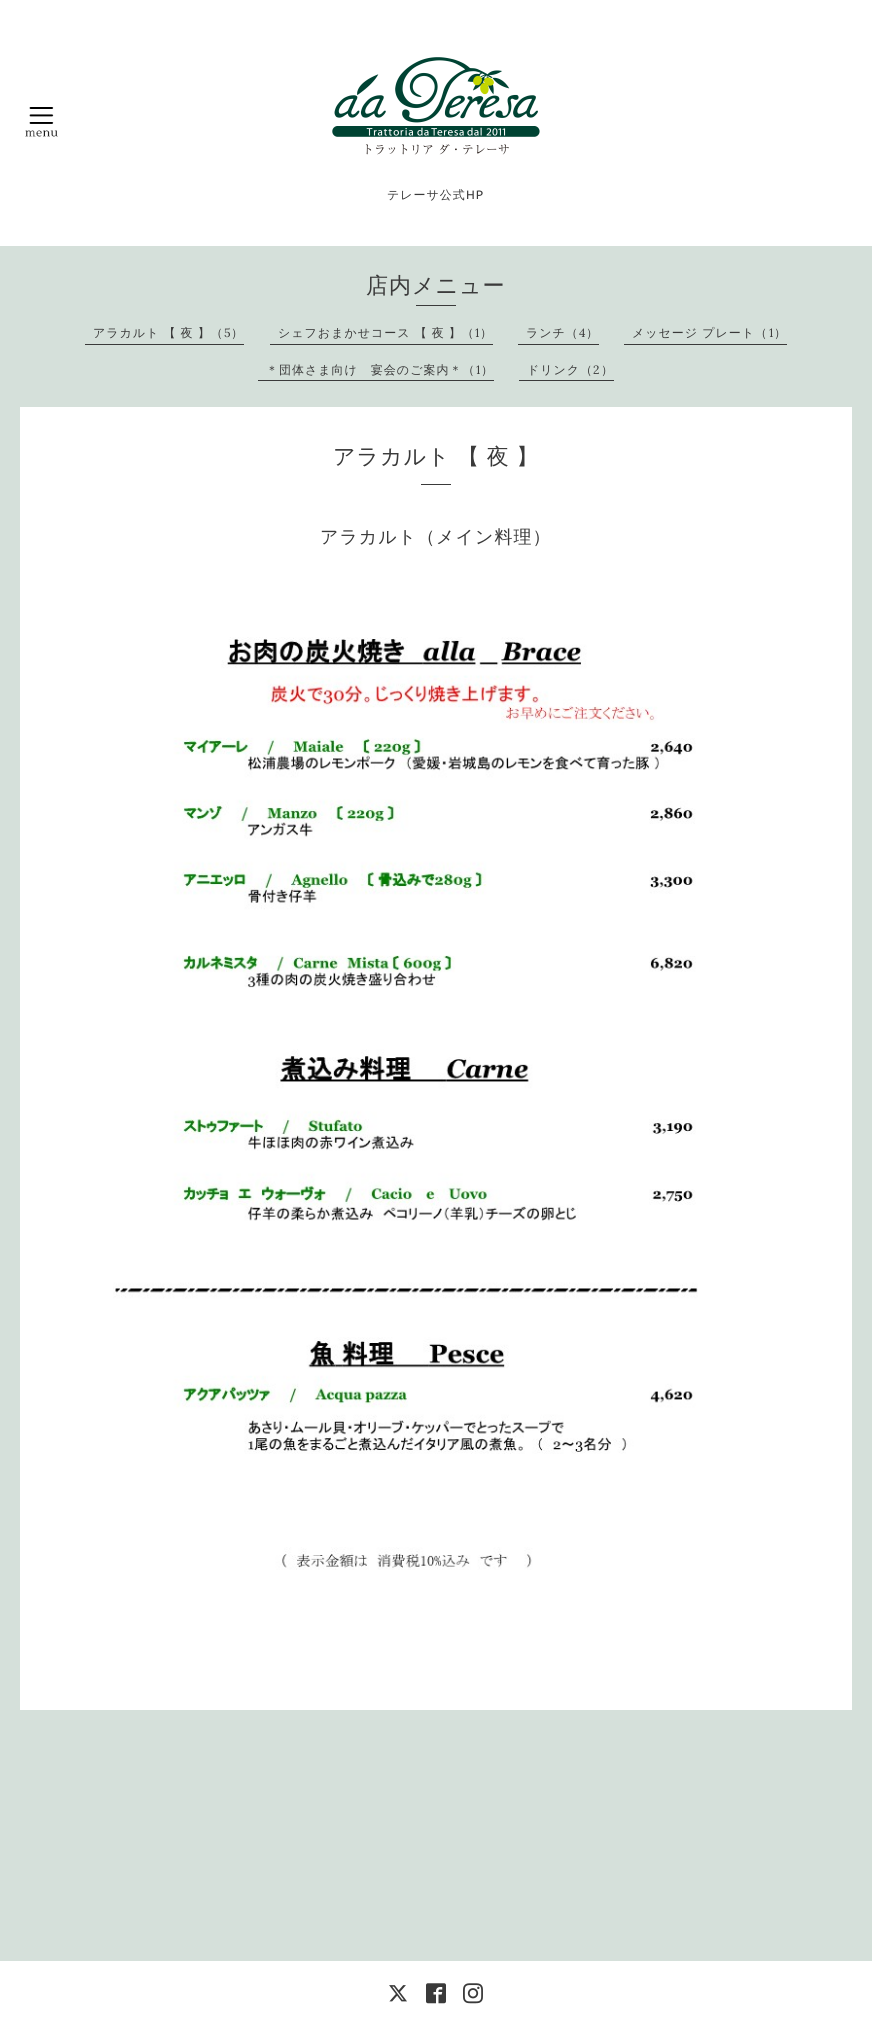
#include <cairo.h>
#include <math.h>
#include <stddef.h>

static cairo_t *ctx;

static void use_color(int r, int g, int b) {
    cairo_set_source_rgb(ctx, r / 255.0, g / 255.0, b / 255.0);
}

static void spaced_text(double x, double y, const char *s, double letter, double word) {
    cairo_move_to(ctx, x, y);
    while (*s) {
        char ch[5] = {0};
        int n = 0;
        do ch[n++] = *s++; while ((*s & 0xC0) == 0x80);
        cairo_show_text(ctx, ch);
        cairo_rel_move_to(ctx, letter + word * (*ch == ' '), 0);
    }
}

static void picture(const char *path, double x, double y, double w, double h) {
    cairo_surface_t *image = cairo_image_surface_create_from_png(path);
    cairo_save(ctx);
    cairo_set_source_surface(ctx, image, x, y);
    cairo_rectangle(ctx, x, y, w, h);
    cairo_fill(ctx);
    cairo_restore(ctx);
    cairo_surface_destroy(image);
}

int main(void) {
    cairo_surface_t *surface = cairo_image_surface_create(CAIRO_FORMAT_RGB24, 872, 2025);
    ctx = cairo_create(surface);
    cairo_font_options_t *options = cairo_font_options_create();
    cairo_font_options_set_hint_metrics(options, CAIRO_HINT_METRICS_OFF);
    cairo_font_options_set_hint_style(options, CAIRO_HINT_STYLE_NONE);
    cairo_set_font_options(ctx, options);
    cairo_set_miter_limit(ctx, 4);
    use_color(255, 255, 255);
    cairo_paint(ctx);
    picture("img1.png", 25, 107, 33, 30);
    picture("img2.png", 332, 57, 208, 98);
    cairo_select_font_face(ctx, "WenQuanYi Zen Hei Medium", CAIRO_FONT_SLANT_NORMAL, CAIRO_FONT_WEIGHT_NORMAL);
    cairo_set_font_size(ctx, 12);
    use_color(58, 58, 58);
    spaced_text(387, 199, "テレーサ公式", 1, 0);
    cairo_select_font_face(ctx, "PT Sans Caption", CAIRO_FONT_SLANT_NORMAL, CAIRO_FONT_WEIGHT_NORMAL);
    spaced_text(466, 199, "HP", 1, 0);
    use_color(213, 224, 218);
    cairo_rectangle(ctx, 0, 246, 872, 1715);
    cairo_fill(ctx);
    cairo_select_font_face(ctx, "WenQuanYi Zen Hei Medium", CAIRO_FONT_SLANT_NORMAL, CAIRO_FONT_WEIGHT_NORMAL);
    cairo_set_font_size(ctx, 22);
    use_color(58, 58, 58);
    spaced_text(366, 293, "店内メニュー", 1, 0);
    cairo_rectangle(ctx, 416, 305, 40, 1);
    cairo_fill(ctx);
    cairo_rectangle(ctx, 85, 344, 159, 1);
    cairo_fill(ctx);
    cairo_set_font_size(ctx, 12);
    spaced_text(93, 337, "アラカルト 【 夜 】（", 1, -0.5);
    cairo_select_font_face(ctx, "Lora", CAIRO_FONT_SLANT_NORMAL, CAIRO_FONT_WEIGHT_NORMAL);
    spaced_text(224, 337, "5", 1, 0);
    cairo_select_font_face(ctx, "WenQuanYi Zen Hei Medium", CAIRO_FONT_SLANT_NORMAL, CAIRO_FONT_WEIGHT_NORMAL);
    spaced_text(231, 337, "）", 1, 0);
    cairo_rectangle(ctx, 270, 344, 223, 1);
    cairo_fill(ctx);
    spaced_text(278, 337, "シェフおまかせコース 【 夜 】（", 1, -0.5);
    cairo_select_font_face(ctx, "Lora", CAIRO_FONT_SLANT_NORMAL, CAIRO_FONT_WEIGHT_NORMAL);
    spaced_text(475, 337, "1", 1, 0);
    cairo_select_font_face(ctx, "WenQuanYi Zen Hei Medium", CAIRO_FONT_SLANT_NORMAL, CAIRO_FONT_WEIGHT_NORMAL);
    spaced_text(480, 337, "）", 1, 0);
    cairo_rectangle(ctx, 518, 344, 81, 1);
    cairo_fill(ctx);
    spaced_text(526, 337, "ランチ（", 1, 0);
    cairo_select_font_face(ctx, "Lora", CAIRO_FONT_SLANT_NORMAL, CAIRO_FONT_WEIGHT_NORMAL);
    spaced_text(579, 337, "4", 1, 0);
    cairo_select_font_face(ctx, "WenQuanYi Zen Hei Medium", CAIRO_FONT_SLANT_NORMAL, CAIRO_FONT_WEIGHT_NORMAL);
    spaced_text(586, 337, "）", 1, 0);
    cairo_rectangle(ctx, 624, 344, 163, 1);
    cairo_fill(ctx);
    spaced_text(632, 337, "メッセージ プレート（", 1, -0.5);
    cairo_select_font_face(ctx, "Lora", CAIRO_FONT_SLANT_NORMAL, CAIRO_FONT_WEIGHT_NORMAL);
    spaced_text(769, 337, "1", 1, 0);
    cairo_select_font_face(ctx, "WenQuanYi Zen Hei Medium", CAIRO_FONT_SLANT_NORMAL, CAIRO_FONT_WEIGHT_NORMAL);
    spaced_text(774, 337, "）", 1, 0);
    cairo_rectangle(ctx, 258, 380, 236, 1);
    cairo_fill(ctx);
    spaced_text(266, 374, "＊団体さま向け　宴会のご案内＊（", 1, 0);
    cairo_select_font_face(ctx, "Lora", CAIRO_FONT_SLANT_NORMAL, CAIRO_FONT_WEIGHT_NORMAL);
    spaced_text(476, 374, "1", 1, 0);
    cairo_select_font_face(ctx, "WenQuanYi Zen Hei Medium", CAIRO_FONT_SLANT_NORMAL, CAIRO_FONT_WEIGHT_NORMAL);
    spaced_text(481, 374, "）", 1, 0);
    cairo_rectangle(ctx, 519, 380, 95, 1);
    cairo_fill(ctx);
    spaced_text(527, 374, "ドリンク（", 1, 0);
    cairo_select_font_face(ctx, "Lora", CAIRO_FONT_SLANT_NORMAL, CAIRO_FONT_WEIGHT_NORMAL);
    spaced_text(593, 374, "2", 1, 0);
    cairo_select_font_face(ctx, "WenQuanYi Zen Hei Medium", CAIRO_FONT_SLANT_NORMAL, CAIRO_FONT_WEIGHT_NORMAL);
    spaced_text(601, 374, "）", 1, 0);
    use_color(255, 255, 255);
    cairo_rectangle(ctx, 20, 407, 832, 1303);
    cairo_fill(ctx);
    cairo_set_font_size(ctx, 22);
    use_color(58, 58, 58);
    spaced_text(333, 464, "アラカルト 【 夜 】", 1, -1);
    cairo_rectangle(ctx, 421, 484, 30, 1);
    cairo_fill(ctx);
    cairo_set_font_size(ctx, 18);
    spaced_text(320, 543, "アラカルト（メイン料理）", 1, 0);
    picture("img3.png", 113, 637, 585, 933);
    picture("img4.png", 389, 1985, 18, 17);
    picture("img5.png", 426, 1983, 20, 21);
    picture("img6.png", 463, 1983, 20, 21);
    cairo_surface_write_to_png(surface, "result.png");
    cairo_font_options_destroy(options);
    cairo_destroy(ctx);
    cairo_surface_destroy(surface);
    return 0;
}
